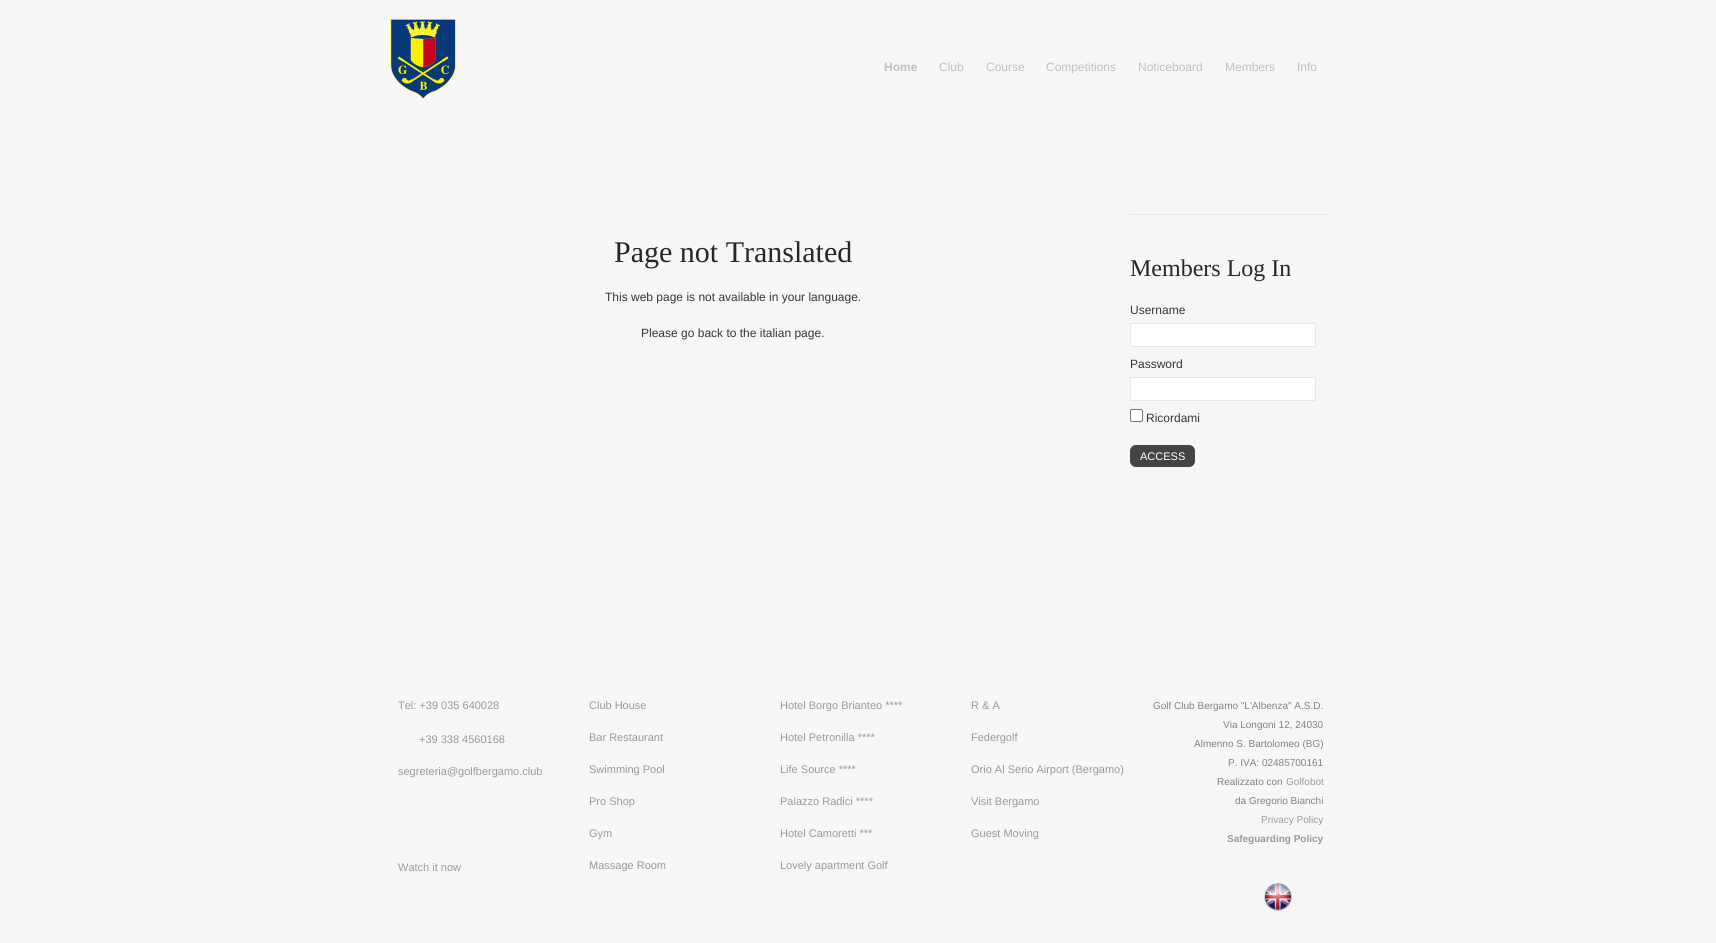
#include <cairo.h>
#include <math.h>
#include <stddef.h>

static cairo_t *ctx;

static void use_color(int r, int g, int b) {
    cairo_set_source_rgb(ctx, r / 255.0, g / 255.0, b / 255.0);
}

static void round_rect(double x, double y, double w, double h, double r) {
    cairo_new_sub_path(ctx);
    cairo_arc(ctx, x + w - r, y + h - r, r, 0, M_PI / 2);
    cairo_arc(ctx, x + r, y + h - r, r, M_PI / 2, M_PI);
    cairo_arc(ctx, x + r, y + r, r, M_PI, 1.5 * M_PI);
    cairo_arc(ctx, x + w - r, y + r, r, 1.5 * M_PI, 2 * M_PI);
    cairo_close_path(ctx);
}

static void picture(const char *path, double x, double y, double w, double h) {
    cairo_surface_t *image = cairo_image_surface_create_from_png(path);
    cairo_save(ctx);
    cairo_set_source_surface(ctx, image, x, y);
    cairo_rectangle(ctx, x, y, w, h);
    cairo_fill(ctx);
    cairo_restore(ctx);
    cairo_surface_destroy(image);
}

int main(void) {
    cairo_surface_t *surface = cairo_image_surface_create(CAIRO_FORMAT_RGB24, 1716, 943);
    ctx = cairo_create(surface);
    cairo_font_options_t *options = cairo_font_options_create();
    cairo_font_options_set_hint_metrics(options, CAIRO_HINT_METRICS_OFF);
    cairo_font_options_set_hint_style(options, CAIRO_HINT_STYLE_NONE);
    cairo_set_font_options(ctx, options);
    cairo_set_miter_limit(ctx, 4);
    use_color(247, 247, 247);
    cairo_paint(ctx);
    picture("img1.png", 390, 19, 66, 80);
    cairo_select_font_face(ctx, "Liberation Sans", CAIRO_FONT_SLANT_NORMAL, CAIRO_FONT_WEIGHT_BOLD);
    cairo_set_font_size(ctx, 12);
    use_color(192, 192, 192);
    cairo_move_to(ctx, 884, 71);
    cairo_show_text(ctx, "Home");
    cairo_select_font_face(ctx, "Liberation Sans", CAIRO_FONT_SLANT_NORMAL, CAIRO_FONT_WEIGHT_NORMAL);
    cairo_move_to(ctx, 939, 71);
    cairo_show_text(ctx, "Club");
    cairo_move_to(ctx, 986, 71);
    cairo_show_text(ctx, "Course");
    cairo_move_to(ctx, 1046, 71);
    cairo_show_text(ctx, "Competitions");
    cairo_move_to(ctx, 1138, 71);
    cairo_show_text(ctx, "Noticeboard");
    cairo_move_to(ctx, 1225, 71);
    cairo_show_text(ctx, "Members");
    cairo_move_to(ctx, 1297, 71);
    cairo_show_text(ctx, "Info");
    cairo_select_font_face(ctx, "Liberation Serif", CAIRO_FONT_SLANT_NORMAL, CAIRO_FONT_WEIGHT_NORMAL);
    cairo_set_font_size(ctx, 30);
    use_color(39, 39, 39);
    cairo_move_to(ctx, 614, 262);
    cairo_show_text(ctx, "Page not Translated");
    cairo_select_font_face(ctx, "Liberation Sans", CAIRO_FONT_SLANT_NORMAL, CAIRO_FONT_WEIGHT_NORMAL);
    cairo_set_font_size(ctx, 12);
    use_color(54, 54, 54);
    cairo_move_to(ctx, 605, 301);
    cairo_show_text(ctx, "This web page is not available in your language.");
    cairo_move_to(ctx, 641, 337);
    cairo_show_text(ctx, "Please go back to the italian page.");
    use_color(231, 231, 231);
    cairo_rectangle(ctx, 1130, 214, 198, 1);
    cairo_fill(ctx);
    cairo_select_font_face(ctx, "Liberation Serif", CAIRO_FONT_SLANT_NORMAL, CAIRO_FONT_WEIGHT_NORMAL);
    cairo_set_font_size(ctx, 24);
    use_color(39, 39, 39);
    cairo_move_to(ctx, 1130, 276);
    cairo_show_text(ctx, "Members Log In");
    cairo_select_font_face(ctx, "Liberation Sans", CAIRO_FONT_SLANT_NORMAL, CAIRO_FONT_WEIGHT_NORMAL);
    cairo_set_font_size(ctx, 12);
    use_color(54, 54, 54);
    cairo_move_to(ctx, 1130, 314);
    cairo_show_text(ctx, "Username");
    use_color(255, 255, 255);
    cairo_rectangle(ctx, 1130.5, 323.5, 185, 23);
    cairo_fill_preserve(ctx);
    use_color(231, 231, 231);
    cairo_set_line_width(ctx, 1);
    cairo_stroke(ctx);
    use_color(54, 54, 54);
    cairo_move_to(ctx, 1130, 368);
    cairo_show_text(ctx, "Password");
    use_color(255, 255, 255);
    cairo_rectangle(ctx, 1130.5, 377.5, 185, 23);
    cairo_fill_preserve(ctx);
    use_color(231, 231, 231);
    cairo_stroke(ctx);
    use_color(255, 255, 255);
    round_rect(1130.5, 409.5, 12, 12, 1.5);
    cairo_fill_preserve(ctx);
    use_color(118, 118, 118);
    cairo_stroke(ctx);
    use_color(54, 54, 54);
    cairo_move_to(ctx, 1146, 422);
    cairo_show_text(ctx, "Ricordami");
    use_color(68, 68, 68);
    round_rect(1130, 445, 65, 22, 6);
    cairo_fill(ctx);
    cairo_set_font_size(ctx, 11);
    use_color(255, 255, 255);
    cairo_move_to(ctx, 1140, 460);
    cairo_show_text(ctx, "ACCESS");
    use_color(153, 153, 153);
    cairo_move_to(ctx, 398, 709);
    cairo_show_text(ctx, "Tel: +39 035 640028");
    cairo_move_to(ctx, 419, 743);
    cairo_show_text(ctx, "+39 338 4560168");
    cairo_move_to(ctx, 398, 775);
    cairo_show_text(ctx, "segreteria@golfbergamo.club");
    cairo_move_to(ctx, 398, 871);
    cairo_show_text(ctx, "Watch it now");
    cairo_move_to(ctx, 589, 709);
    cairo_show_text(ctx, "Club House");
    cairo_move_to(ctx, 589, 741);
    cairo_show_text(ctx, "Bar Restaurant");
    cairo_move_to(ctx, 589, 773);
    cairo_show_text(ctx, "Swimming Pool");
    cairo_move_to(ctx, 589, 805);
    cairo_show_text(ctx, "Pro Shop");
    cairo_move_to(ctx, 589, 837);
    cairo_show_text(ctx, "Gym");
    cairo_move_to(ctx, 589, 869);
    cairo_show_text(ctx, "Massage Room");
    cairo_move_to(ctx, 780, 709);
    cairo_show_text(ctx, "Hotel Borgo Brianteo ****");
    cairo_move_to(ctx, 780, 741);
    cairo_show_text(ctx, "Hotel Petronilla ****");
    cairo_move_to(ctx, 780, 773);
    cairo_show_text(ctx, "Life Source ****");
    cairo_move_to(ctx, 780, 805);
    cairo_show_text(ctx, "Palazzo Radici ****");
    cairo_move_to(ctx, 780, 837);
    cairo_show_text(ctx, "Hotel Camoretti ***");
    cairo_move_to(ctx, 780, 869);
    cairo_show_text(ctx, "Lovely apartment Golf");
    cairo_move_to(ctx, 971, 709);
    cairo_show_text(ctx, "R & A");
    cairo_move_to(ctx, 971, 741);
    cairo_show_text(ctx, "Federgolf");
    cairo_move_to(ctx, 971, 773);
    cairo_show_text(ctx, "Orio Al Serio Airport (Bergamo)");
    cairo_move_to(ctx, 971, 805);
    cairo_show_text(ctx, "Visit Bergamo");
    cairo_move_to(ctx, 971, 837);
    cairo_show_text(ctx, "Guest Moving");
    cairo_set_font_size(ctx, 10);
    use_color(129, 129, 129);
    cairo_move_to(ctx, 1153, 709);
    cairo_show_text(ctx, "Golf Club Bergamo \"L'Albenza\" A.S.D.");
    cairo_move_to(ctx, 1223, 728);
    cairo_show_text(ctx, "Via Longoni 12, 24030");
    cairo_move_to(ctx, 1194, 747);
    cairo_show_text(ctx, "Almenno S. Bartolomeo (BG)");
    cairo_move_to(ctx, 1228, 766);
    cairo_show_text(ctx, "P. IVA: 02485700161");
    cairo_move_to(ctx, 1217, 785);
    cairo_show_text(ctx, "Realizzato con");
    use_color(153, 153, 153);
    cairo_move_to(ctx, 1286, 785);
    cairo_show_text(ctx, "Golfobot");
    use_color(129, 129, 129);
    cairo_move_to(ctx, 1235, 804);
    cairo_show_text(ctx, "da Gregorio Bianchi");
    use_color(153, 153, 153);
    cairo_move_to(ctx, 1261, 823);
    cairo_show_text(ctx, "Privacy Policy");
    cairo_select_font_face(ctx, "Liberation Sans", CAIRO_FONT_SLANT_NORMAL, CAIRO_FONT_WEIGHT_BOLD);
    cairo_move_to(ctx, 1227, 842);
    cairo_show_text(ctx, "Safeguarding Policy");
    picture("img2.png", 1264, 883, 28, 28);
    cairo_surface_write_to_png(surface, "result.png");
    cairo_font_options_destroy(options);
    cairo_destroy(ctx);
    cairo_surface_destroy(surface);
    return 0;
}
